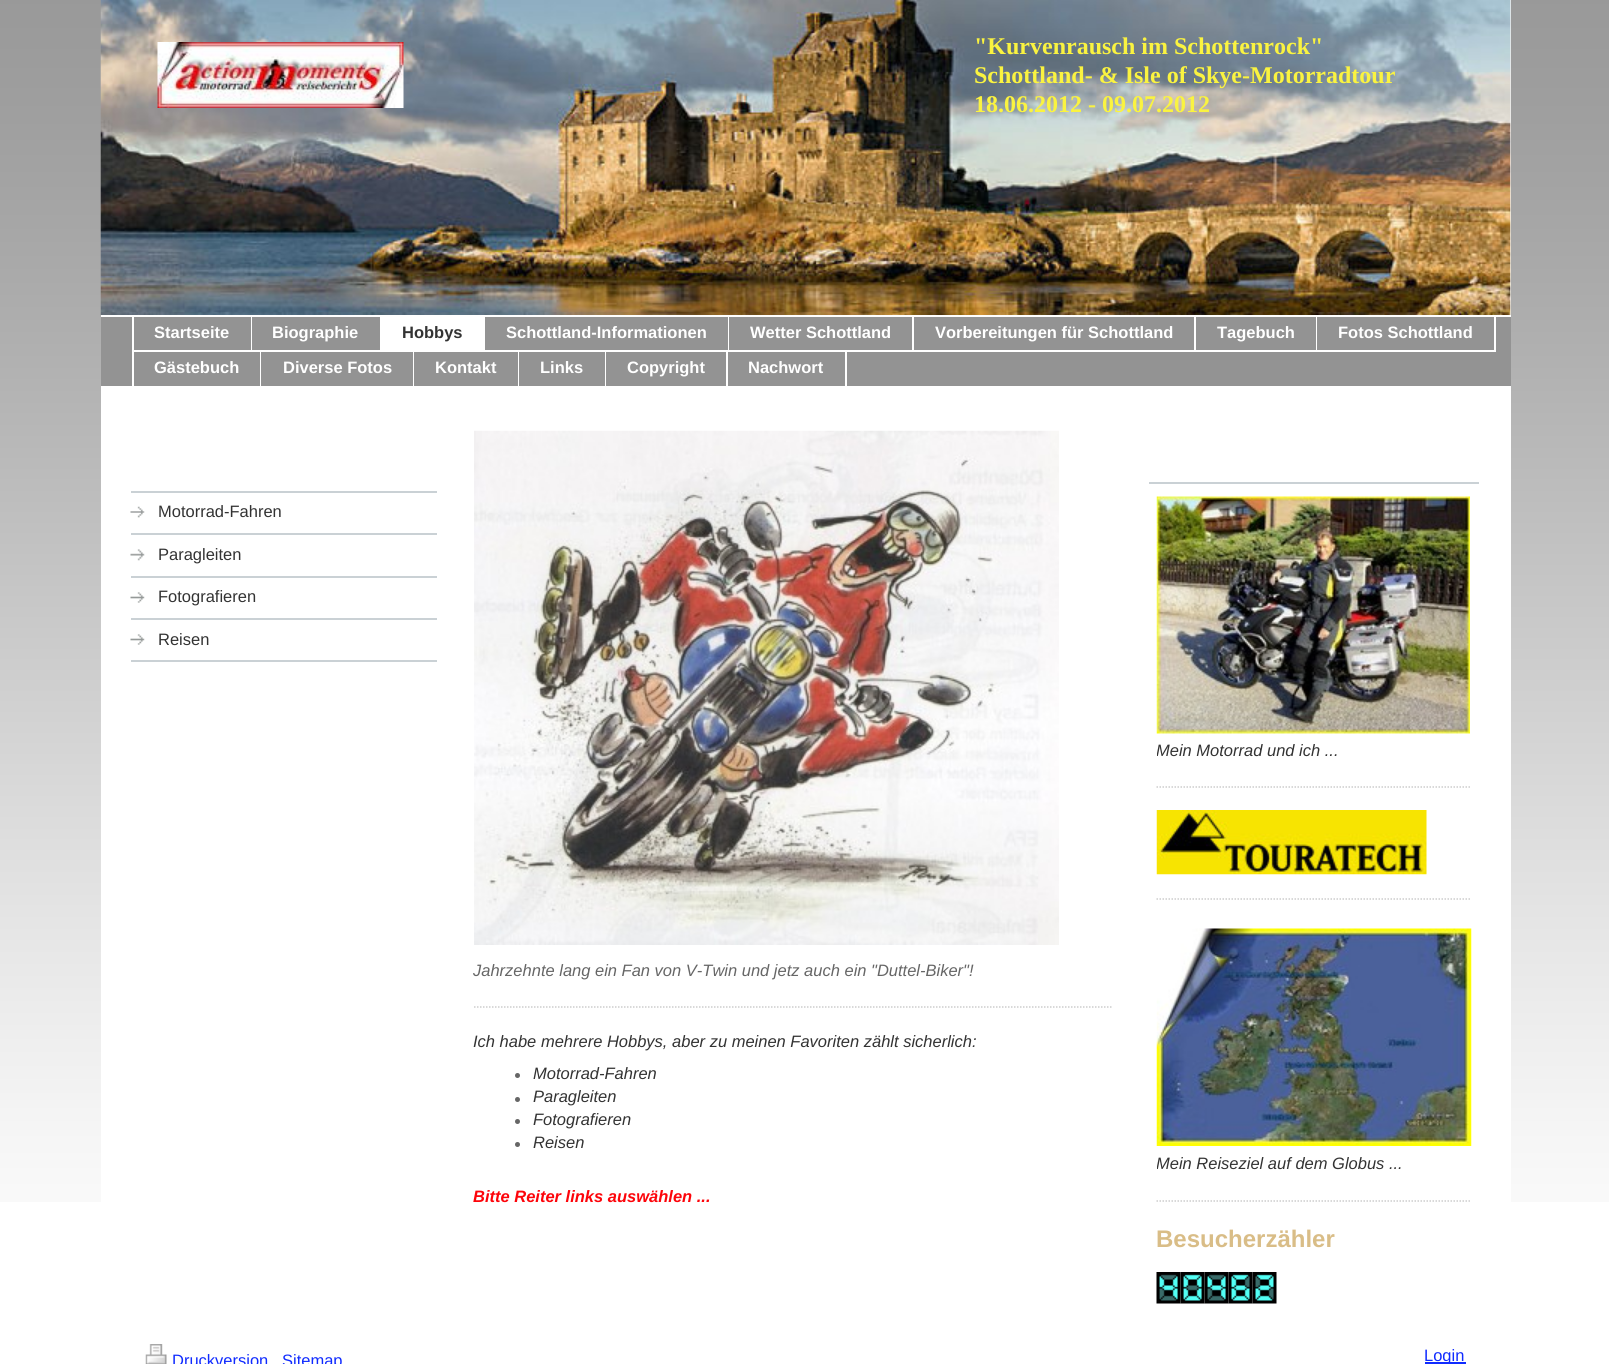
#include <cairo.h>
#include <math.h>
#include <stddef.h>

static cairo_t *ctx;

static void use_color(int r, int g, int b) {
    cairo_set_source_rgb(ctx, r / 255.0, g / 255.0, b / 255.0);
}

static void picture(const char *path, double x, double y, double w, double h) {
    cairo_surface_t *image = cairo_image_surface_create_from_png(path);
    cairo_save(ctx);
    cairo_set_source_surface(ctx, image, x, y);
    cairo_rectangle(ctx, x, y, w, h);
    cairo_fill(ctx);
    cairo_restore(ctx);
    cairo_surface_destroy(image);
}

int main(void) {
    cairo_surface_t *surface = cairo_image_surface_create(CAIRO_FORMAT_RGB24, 1609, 1364);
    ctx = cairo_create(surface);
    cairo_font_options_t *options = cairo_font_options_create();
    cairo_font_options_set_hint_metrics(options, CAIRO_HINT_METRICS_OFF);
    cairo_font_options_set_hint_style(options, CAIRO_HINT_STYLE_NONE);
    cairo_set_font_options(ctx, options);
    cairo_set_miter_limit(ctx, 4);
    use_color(255, 255, 255);
    cairo_paint(ctx);
    picture("img1.png", 0, 0, 1609, 1202);
    use_color(255, 255, 255);
    cairo_rectangle(ctx, 101, 315, 1410, 887);
    cairo_fill(ctx);
    use_color(238, 238, 238);
    cairo_rectangle(ctx, 1510, 0, 1, 315);
    cairo_fill(ctx);
    picture("img2.png", 100, 0, 1411, 315);
    picture("img3.png", 157, 42, 247, 66);
    cairo_select_font_face(ctx, "Liberation Serif", CAIRO_FONT_SLANT_NORMAL, CAIRO_FONT_WEIGHT_BOLD);
    cairo_set_font_size(ctx, 24);
    use_color(250, 243, 64);
    cairo_move_to(ctx, 974, 54);
    cairo_show_text(ctx, "\"Kurvenrausch im Schottenrock\"");
    cairo_move_to(ctx, 974, 83);
    cairo_show_text(ctx, "Schottland- & Isle of Skye-Motorradtour");
    cairo_move_to(ctx, 974, 112);
    cairo_show_text(ctx, "18.06.2012 - 09.07.2012");
    use_color(147, 147, 147);
    cairo_rectangle(ctx, 101, 317, 1410, 69);
    cairo_fill(ctx);
    use_color(255, 255, 255);
    cairo_rectangle(ctx, 132, 315, 2, 71);
    cairo_fill(ctx);
    cairo_rectangle(ctx, 251, 315, 1, 36);
    cairo_fill(ctx);
    cairo_select_font_face(ctx, "Liberation Sans", CAIRO_FONT_SLANT_NORMAL, CAIRO_FONT_WEIGHT_BOLD);
    cairo_set_font_size(ctx, 16.5);
    cairo_move_to(ctx, 154, 338);
    cairo_show_text(ctx, "Startseite");
    cairo_rectangle(ctx, 380, 315, 1, 36);
    cairo_fill(ctx);
    cairo_move_to(ctx, 272, 338);
    cairo_show_text(ctx, "Biographie");
    cairo_rectangle(ctx, 381, 317, 104, 33);
    cairo_fill(ctx);
    use_color(51, 51, 51);
    cairo_move_to(ctx, 402, 338);
    cairo_show_text(ctx, "Hobbys");
    use_color(255, 255, 255);
    cairo_rectangle(ctx, 728, 315, 1, 36);
    cairo_fill(ctx);
    cairo_move_to(ctx, 506, 338);
    cairo_show_text(ctx, "Schottland-Informationen");
    cairo_rectangle(ctx, 912, 315, 2, 36);
    cairo_fill(ctx);
    cairo_rectangle(ctx, 847, 350, 67, 2);
    cairo_fill(ctx);
    cairo_move_to(ctx, 750, 338);
    cairo_show_text(ctx, "Wetter Schottland");
    cairo_rectangle(ctx, 1194, 315, 2, 36);
    cairo_fill(ctx);
    cairo_rectangle(ctx, 914, 350, 282, 2);
    cairo_fill(ctx);
    cairo_move_to(ctx, 935, 338);
    cairo_show_text(ctx, "Vorbereitungen für Schottland");
    cairo_rectangle(ctx, 1316, 315, 1, 36);
    cairo_fill(ctx);
    cairo_rectangle(ctx, 1196, 350, 121, 2);
    cairo_fill(ctx);
    cairo_move_to(ctx, 1217, 338);
    cairo_show_text(ctx, "Tagebuch");
    cairo_rectangle(ctx, 1494, 315, 2, 36);
    cairo_fill(ctx);
    cairo_rectangle(ctx, 1317, 350, 179, 2);
    cairo_fill(ctx);
    cairo_move_to(ctx, 1338, 338);
    cairo_show_text(ctx, "Fotos Schottland");
    cairo_rectangle(ctx, 134, 350, 712, 2);
    cairo_fill(ctx);
    cairo_rectangle(ctx, 260, 350, 1, 37);
    cairo_fill(ctx);
    cairo_move_to(ctx, 154, 373);
    cairo_show_text(ctx, "Gästebuch");
    cairo_rectangle(ctx, 413, 350, 1, 37);
    cairo_fill(ctx);
    cairo_move_to(ctx, 283, 373);
    cairo_show_text(ctx, "Diverse Fotos");
    cairo_rectangle(ctx, 518, 350, 1, 37);
    cairo_fill(ctx);
    cairo_move_to(ctx, 435, 373);
    cairo_show_text(ctx, "Kontakt");
    cairo_rectangle(ctx, 605, 350, 1, 37);
    cairo_fill(ctx);
    cairo_move_to(ctx, 540, 373);
    cairo_show_text(ctx, "Links");
    cairo_rectangle(ctx, 726, 350, 2, 37);
    cairo_fill(ctx);
    cairo_move_to(ctx, 627, 373);
    cairo_show_text(ctx, "Copyright");
    cairo_rectangle(ctx, 845, 350, 2, 37);
    cairo_fill(ctx);
    cairo_move_to(ctx, 748, 373);
    cairo_show_text(ctx, "Nachwort");
    picture("img4.png", 130, 492, 307, 26);
    use_color(202, 209, 213);
    cairo_rectangle(ctx, 131, 491, 306, 2);
    cairo_fill(ctx);
    cairo_select_font_face(ctx, "Liberation Sans", CAIRO_FONT_SLANT_NORMAL, CAIRO_FONT_WEIGHT_NORMAL);
    use_color(51, 51, 51);
    cairo_move_to(ctx, 158, 517);
    cairo_show_text(ctx, "Motorrad-Fahren");
    picture("img5.png", 130, 534, 307, 27);
    use_color(202, 209, 213);
    cairo_rectangle(ctx, 131, 533, 306, 2);
    cairo_fill(ctx);
    use_color(51, 51, 51);
    cairo_move_to(ctx, 158, 560);
    cairo_show_text(ctx, "Paragleiten");
    picture("img6.png", 130, 577, 307, 26);
    use_color(202, 209, 213);
    cairo_rectangle(ctx, 131, 576, 306, 2);
    cairo_fill(ctx);
    use_color(51, 51, 51);
    cairo_move_to(ctx, 158, 602);
    cairo_show_text(ctx, "Fotografieren");
    picture("img6.png", 130, 619, 307, 26);
    use_color(202, 209, 213);
    cairo_rectangle(ctx, 131, 618, 306, 2);
    cairo_fill(ctx);
    cairo_rectangle(ctx, 131, 660, 306, 2);
    cairo_fill(ctx);
    use_color(51, 51, 51);
    cairo_move_to(ctx, 158, 645);
    cairo_show_text(ctx, "Reisen");
    picture("img7.png", 474, 430, 585, 515);
    cairo_select_font_face(ctx, "Liberation Sans", CAIRO_FONT_SLANT_ITALIC, CAIRO_FONT_WEIGHT_NORMAL);
    use_color(102, 102, 102);
    cairo_move_to(ctx, 473, 976);
    cairo_show_text(ctx, "Jahrzehnte lang ein Fan von V-Twin und jetz auch ein \"Duttel-Biker\"!");
    cairo_new_path(ctx);
    cairo_move_to(ctx, 474, 1007);
    cairo_line_to(ctx, 1111.5, 1007);
    use_color(204, 204, 204);
    cairo_set_line_width(ctx, 1.5);
    cairo_set_dash(ctx, (double[]){1.5, 1.5}, 2, 0);
    cairo_stroke(ctx);
    use_color(51, 51, 51);
    cairo_move_to(ctx, 473, 1047);
    cairo_show_text(ctx, "Ich habe mehrere Hobbys, aber zu meinen Favoriten zählt sicherlich:");
    use_color(102, 102, 102);
    cairo_new_path(ctx);
    cairo_arc(ctx, 517.5, 1075.5, 2.5, 0, 2 * M_PI);
    cairo_fill(ctx);
    use_color(51, 51, 51);
    cairo_move_to(ctx, 533, 1079);
    cairo_show_text(ctx, "Motorrad-Fahren");
    use_color(102, 102, 102);
    cairo_new_path(ctx);
    cairo_arc(ctx, 517.5, 1099.5, 2.5, 0, 2 * M_PI);
    cairo_fill(ctx);
    use_color(51, 51, 51);
    cairo_move_to(ctx, 533, 1102);
    cairo_show_text(ctx, "Paragleiten");
    use_color(102, 102, 102);
    cairo_new_path(ctx);
    cairo_arc(ctx, 517.5, 1121.5, 2.5, 0, 2 * M_PI);
    cairo_fill(ctx);
    use_color(51, 51, 51);
    cairo_move_to(ctx, 533, 1125);
    cairo_show_text(ctx, "Fotografieren");
    use_color(102, 102, 102);
    cairo_new_path(ctx);
    cairo_arc(ctx, 517.5, 1144.5, 2.5, 0, 2 * M_PI);
    cairo_fill(ctx);
    use_color(51, 51, 51);
    cairo_move_to(ctx, 533, 1148);
    cairo_show_text(ctx, "Reisen");
    cairo_select_font_face(ctx, "Liberation Sans", CAIRO_FONT_SLANT_ITALIC, CAIRO_FONT_WEIGHT_BOLD);
    use_color(253, 4, 10);
    cairo_move_to(ctx, 473, 1202);
    cairo_show_text(ctx, "Bitte Reiter links auswählen ...");
    use_color(202, 209, 213);
    cairo_rectangle(ctx, 1149, 482, 330, 2);
    cairo_fill(ctx);
    picture("img8.png", 1156, 496, 314, 238);
    cairo_save(ctx);
    cairo_rectangle(ctx, 1157, 491, 315, 271);
    cairo_clip(ctx);
    cairo_select_font_face(ctx, "Liberation Sans", CAIRO_FONT_SLANT_ITALIC, CAIRO_FONT_WEIGHT_NORMAL);
    use_color(51, 51, 51);
    cairo_move_to(ctx, 1156, 756);
    cairo_show_text(ctx, "Mein Motorrad und ich ...");
    cairo_restore(ctx);
    cairo_new_path(ctx);
    cairo_move_to(ctx, 1156.5, 787);
    cairo_line_to(ctx, 1471.5, 787);
    use_color(204, 204, 204);
    cairo_stroke(ctx);
    picture("img9.png", 1156, 810, 271, 65);
    cairo_new_path(ctx);
    cairo_move_to(ctx, 1156.5, 899);
    cairo_line_to(ctx, 1471.5, 899);
    cairo_stroke(ctx);
    picture("img10.png", 1156, 928, 316, 218);
    cairo_save(ctx);
    cairo_rectangle(ctx, 1157, 923, 315, 253);
    cairo_clip(ctx);
    cairo_select_font_face(ctx, "Liberation Sans", CAIRO_FONT_SLANT_ITALIC, CAIRO_FONT_WEIGHT_NORMAL);
    use_color(51, 51, 51);
    cairo_move_to(ctx, 1156, 1169);
    cairo_show_text(ctx, "Mein Reiseziel auf dem Globus ...");
    cairo_restore(ctx);
    cairo_new_path(ctx);
    cairo_move_to(ctx, 1156.5, 1201);
    cairo_line_to(ctx, 1471.5, 1201);
    cairo_stroke(ctx);
    cairo_select_font_face(ctx, "Liberation Sans", CAIRO_FONT_SLANT_NORMAL, CAIRO_FONT_WEIGHT_BOLD);
    cairo_set_font_size(ctx, 24);
    use_color(217, 189, 135);
    cairo_move_to(ctx, 1156, 1247);
    cairo_show_text(ctx, "Besucherzähler");
    picture("img11.png", 1156, 1272, 25, 32);
    picture("img12.png", 1180, 1272, 25, 32);
    picture("img13.png", 1204, 1272, 25, 32);
    picture("img14.png", 1228, 1272, 25, 32);
    picture("img15.png", 1252, 1272, 25, 32);
    picture("img16.png", 145, 1344, 22, 20);
    cairo_select_font_face(ctx, "Liberation Sans", CAIRO_FONT_SLANT_NORMAL, CAIRO_FONT_WEIGHT_NORMAL);
    cairo_set_font_size(ctx, 16.5);
    use_color(16, 43, 255);
    cairo_move_to(ctx, 172, 1366);
    cairo_show_text(ctx, "Druckversion");
    cairo_move_to(ctx, 282, 1366);
    cairo_show_text(ctx, "Sitemap");
    cairo_rectangle(ctx, 1425, 1362, 41, 2);
    cairo_fill(ctx);
    cairo_move_to(ctx, 1424, 1361);
    cairo_show_text(ctx, "Login");
    cairo_surface_write_to_png(surface, "result.png");
    cairo_font_options_destroy(options);
    cairo_destroy(ctx);
    cairo_surface_destroy(surface);
    return 0;
}
